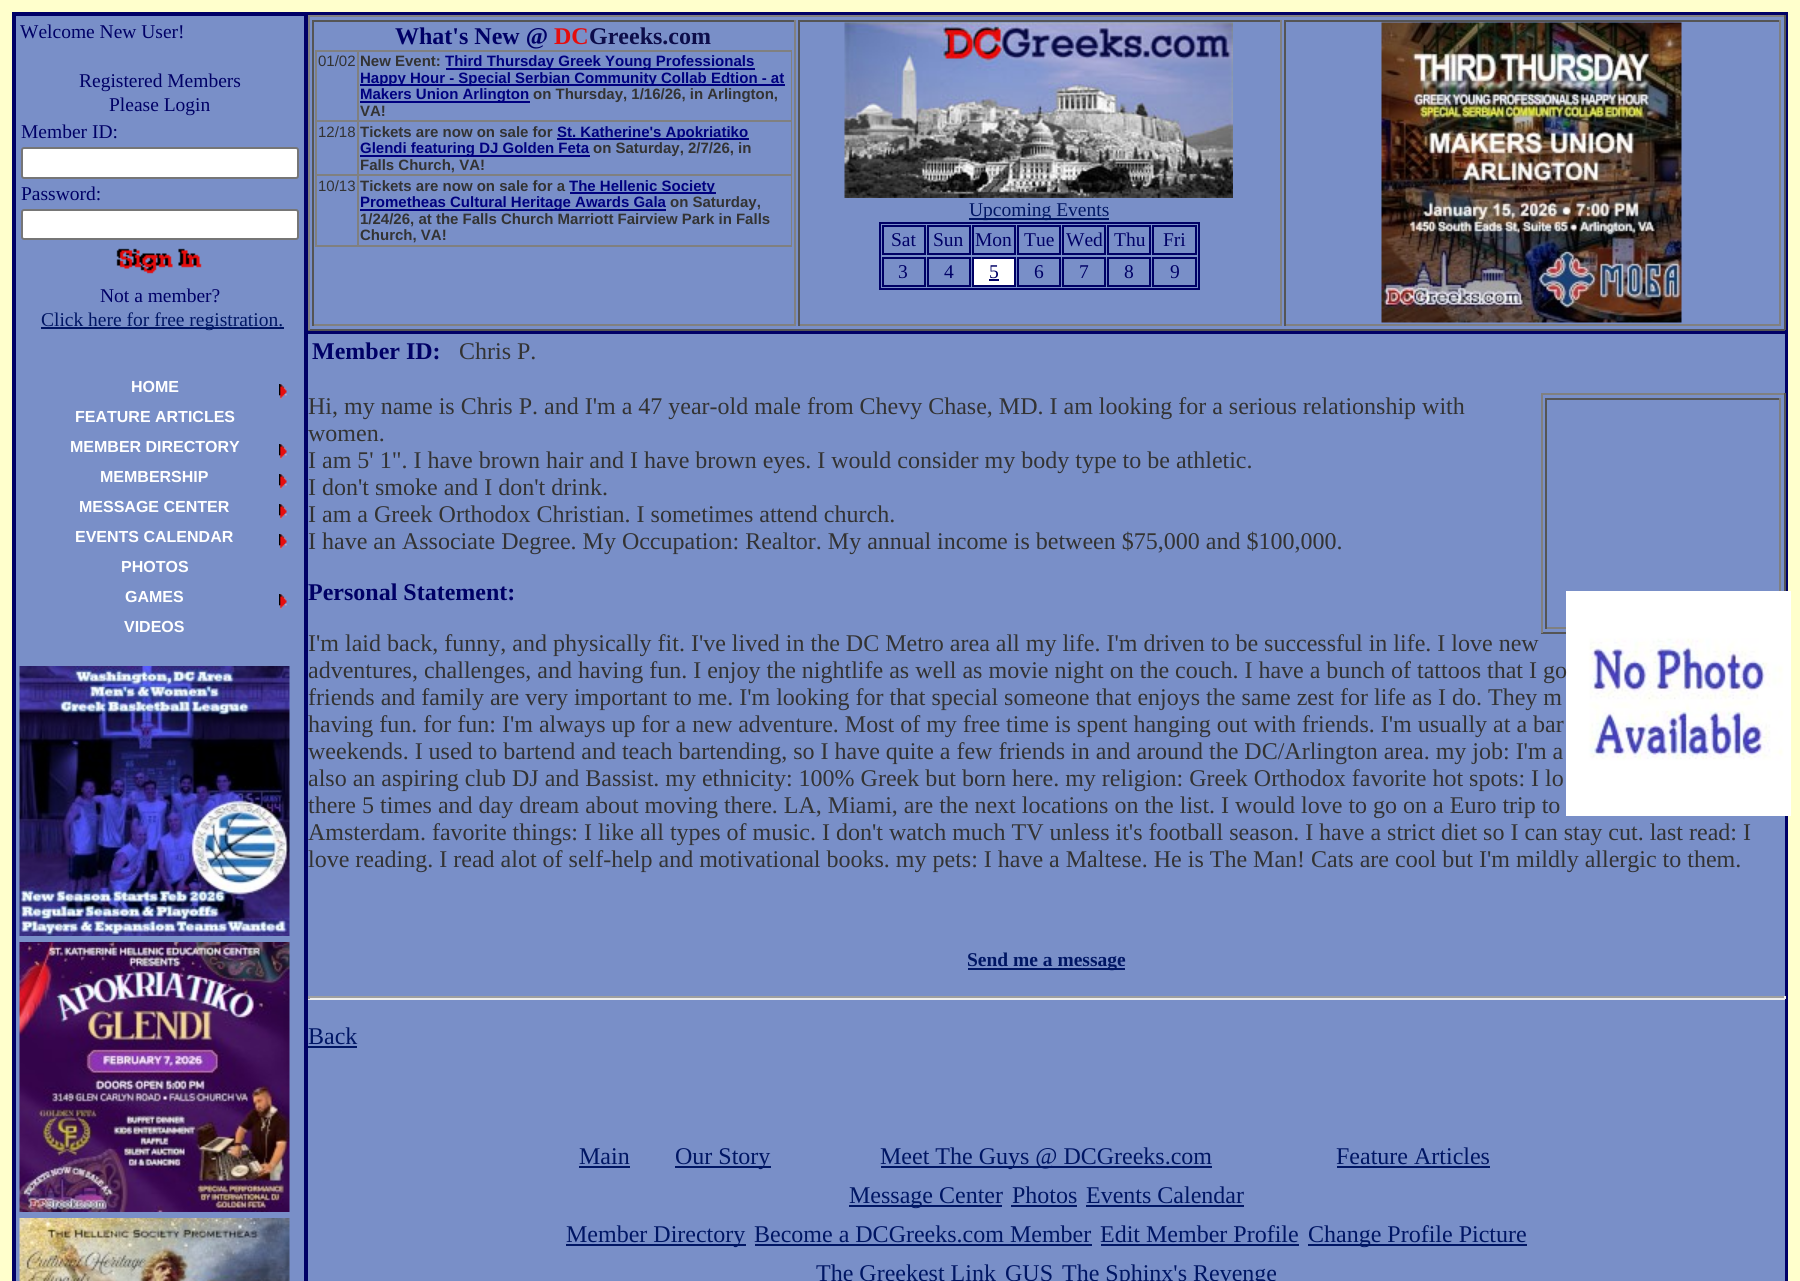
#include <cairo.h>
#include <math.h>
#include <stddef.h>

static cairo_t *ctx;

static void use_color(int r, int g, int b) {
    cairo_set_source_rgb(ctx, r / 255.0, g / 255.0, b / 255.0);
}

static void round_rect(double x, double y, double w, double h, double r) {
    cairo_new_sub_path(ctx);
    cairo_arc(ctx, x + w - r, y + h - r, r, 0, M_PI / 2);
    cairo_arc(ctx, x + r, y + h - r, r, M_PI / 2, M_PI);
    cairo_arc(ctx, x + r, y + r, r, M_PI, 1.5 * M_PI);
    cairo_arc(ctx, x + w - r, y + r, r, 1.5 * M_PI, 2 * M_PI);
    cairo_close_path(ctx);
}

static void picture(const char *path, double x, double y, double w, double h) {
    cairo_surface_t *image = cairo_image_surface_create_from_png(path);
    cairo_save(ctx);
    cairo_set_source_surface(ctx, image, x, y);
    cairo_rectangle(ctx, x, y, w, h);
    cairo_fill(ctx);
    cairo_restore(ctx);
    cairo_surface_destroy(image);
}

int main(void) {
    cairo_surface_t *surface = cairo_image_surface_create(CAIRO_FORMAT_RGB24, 1800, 1281);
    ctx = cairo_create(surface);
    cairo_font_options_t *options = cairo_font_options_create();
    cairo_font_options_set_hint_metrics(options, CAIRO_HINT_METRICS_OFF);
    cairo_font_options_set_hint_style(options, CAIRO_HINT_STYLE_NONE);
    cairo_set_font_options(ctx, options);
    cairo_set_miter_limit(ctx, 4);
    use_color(255, 255, 204);
    cairo_paint(ctx);
    cairo_rectangle(ctx, 13, 13, 1774, 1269);
    use_color(0, 0, 102);
    cairo_stroke(ctx);
    use_color(121, 143, 200);
    cairo_rectangle(ctx, 15, 15, 290, 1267);
    cairo_fill_preserve(ctx);
    use_color(0, 0, 102);
    cairo_stroke(ctx);
    cairo_select_font_face(ctx, "Liberation Serif", CAIRO_FONT_SLANT_NORMAL, CAIRO_FONT_WEIGHT_NORMAL);
    cairo_set_font_size(ctx, 19.5);
    cairo_move_to(ctx, 20, 38);
    cairo_show_text(ctx, "Welcome New User!");
    cairo_move_to(ctx, 79, 87);
    cairo_show_text(ctx, "Registered Members");
    cairo_move_to(ctx, 109, 111);
    cairo_show_text(ctx, "Please Login");
    cairo_move_to(ctx, 21, 138);
    cairo_show_text(ctx, "Member ID:");
    use_color(255, 255, 255);
    round_rect(22, 148, 276, 30, 2);
    cairo_fill_preserve(ctx);
    use_color(118, 118, 118);
    cairo_stroke(ctx);
    use_color(0, 0, 102);
    cairo_move_to(ctx, 21, 200);
    cairo_show_text(ctx, "Password:");
    use_color(255, 255, 255);
    round_rect(22, 210, 276, 29, 2);
    cairo_fill_preserve(ctx);
    use_color(118, 118, 118);
    cairo_stroke(ctx);
    picture("img1.png", 116, 248, 86, 26);
    use_color(0, 0, 102);
    cairo_move_to(ctx, 100, 302);
    cairo_show_text(ctx, "Not a member?");
    use_color(0, 22, 100);
    cairo_rectangle(ctx, 41, 327, 243, 2);
    cairo_fill(ctx);
    cairo_move_to(ctx, 41, 326);
    cairo_show_text(ctx, "Click here for free registration.");
    picture("img2.png", 19, 666, 271, 270);
    picture("img3.png", 19, 942, 271, 270);
    picture("img4.png", 19, 1218, 271, 63);
    use_color(121, 143, 200);
    cairo_rectangle(ctx, 310, 17, 1474, 312);
    cairo_fill(ctx);
    cairo_rectangle(ctx, 307, 15, 1479, 316);
    use_color(0, 0, 102);
    cairo_stroke(ctx);
    use_color(128, 128, 128);
    cairo_rectangle(ctx, 308, 15, 1477, 2);
    cairo_fill(ctx);
    use_color(85, 85, 85);
    cairo_rectangle(ctx, 1784, 15, 2, 315);
    cairo_fill(ctx);
    cairo_rectangle(ctx, 308, 329, 1477, 2);
    cairo_fill(ctx);
    use_color(128, 128, 128);
    cairo_rectangle(ctx, 308, 15, 2, 315);
    cairo_fill(ctx);
    use_color(85, 85, 85);
    cairo_rectangle(ctx, 312, 20, 483, 2);
    cairo_fill(ctx);
    use_color(128, 128, 128);
    cairo_rectangle(ctx, 794, 20, 2, 306);
    cairo_fill(ctx);
    cairo_rectangle(ctx, 312, 324, 483, 2);
    cairo_fill(ctx);
    use_color(85, 85, 85);
    cairo_rectangle(ctx, 312, 20, 2, 306);
    cairo_fill(ctx);
    cairo_select_font_face(ctx, "Liberation Serif", CAIRO_FONT_SLANT_NORMAL, CAIRO_FONT_WEIGHT_BOLD);
    cairo_set_font_size(ctx, 24);
    use_color(0, 0, 102);
    cairo_move_to(ctx, 395, 44);
    cairo_show_text(ctx, "What's New @");
    use_color(230, 13, 13);
    cairo_move_to(ctx, 554, 44);
    cairo_show_text(ctx, "DC");
    use_color(13, 13, 74);
    cairo_move_to(ctx, 589, 44);
    cairo_show_text(ctx, "Greeks.com");
    use_color(128, 128, 128);
    cairo_rectangle(ctx, 357, 50, 435, 2);
    cairo_fill(ctx);
    cairo_rectangle(ctx, 357, 120, 435, 2);
    cairo_fill(ctx);
    cairo_rectangle(ctx, 357, 174, 435, 2);
    cairo_fill(ctx);
    cairo_rectangle(ctx, 791, 174, 1, 72);
    cairo_fill(ctx);
    cairo_rectangle(ctx, 357, 245, 435, 2);
    cairo_fill(ctx);
    cairo_rectangle(ctx, 357, 174, 2, 72);
    cairo_fill(ctx);
    cairo_rectangle(ctx, 315, 174, 44, 2);
    cairo_fill(ctx);
    cairo_rectangle(ctx, 357, 120, 2, 56);
    cairo_fill(ctx);
    cairo_rectangle(ctx, 315, 120, 44, 2);
    cairo_fill(ctx);
    cairo_rectangle(ctx, 357, 50, 2, 72);
    cairo_fill(ctx);
    cairo_rectangle(ctx, 315, 50, 44, 2);
    cairo_fill(ctx);
    cairo_rectangle(ctx, 315, 245, 44, 2);
    cairo_fill(ctx);
    cairo_rectangle(ctx, 315, 174, 2, 72);
    cairo_fill(ctx);
    cairo_rectangle(ctx, 315, 120, 2, 56);
    cairo_fill(ctx);
    cairo_rectangle(ctx, 315, 50, 2, 72);
    cairo_fill(ctx);
    cairo_select_font_face(ctx, "Liberation Sans", CAIRO_FONT_SLANT_NORMAL, CAIRO_FONT_WEIGHT_NORMAL);
    cairo_set_font_size(ctx, 15);
    use_color(51, 51, 51);
    cairo_move_to(ctx, 318, 66);
    cairo_show_text(ctx, "01/02");
    use_color(128, 128, 128);
    cairo_rectangle(ctx, 791, 120, 1, 56);
    cairo_fill(ctx);
    cairo_rectangle(ctx, 791, 50, 1, 72);
    cairo_fill(ctx);
    cairo_select_font_face(ctx, "Liberation Sans", CAIRO_FONT_SLANT_NORMAL, CAIRO_FONT_WEIGHT_BOLD);
    use_color(51, 51, 51);
    cairo_move_to(ctx, 360, 66);
    cairo_show_text(ctx, "New Event:");
    use_color(0, 0, 128);
    cairo_rectangle(ctx, 446, 68, 309, 2);
    cairo_fill(ctx);
    cairo_move_to(ctx, 445, 66);
    cairo_show_text(ctx, "Third Thursday Greek Young Professionals");
    cairo_rectangle(ctx, 360, 84, 425, 2);
    cairo_fill(ctx);
    cairo_move_to(ctx, 360, 83);
    cairo_show_text(ctx, "Happy Hour - Special Serbian Community Collab Edtion - at");
    cairo_rectangle(ctx, 360, 101, 170, 2);
    cairo_fill(ctx);
    cairo_move_to(ctx, 360, 99);
    cairo_show_text(ctx, "Makers Union Arlington");
    use_color(51, 51, 51);
    cairo_move_to(ctx, 533, 99);
    cairo_show_text(ctx, "on Thursday, 1/16/26, in Arlington,");
    cairo_move_to(ctx, 360, 116);
    cairo_show_text(ctx, "VA!");
    cairo_select_font_face(ctx, "Liberation Sans", CAIRO_FONT_SLANT_NORMAL, CAIRO_FONT_WEIGHT_NORMAL);
    cairo_move_to(ctx, 318, 137);
    cairo_show_text(ctx, "12/18");
    cairo_select_font_face(ctx, "Liberation Sans", CAIRO_FONT_SLANT_NORMAL, CAIRO_FONT_WEIGHT_BOLD);
    cairo_move_to(ctx, 360, 137);
    cairo_show_text(ctx, "Tickets are now on sale for");
    use_color(0, 0, 128);
    cairo_rectangle(ctx, 557, 138, 192, 2);
    cairo_fill(ctx);
    cairo_move_to(ctx, 557, 137);
    cairo_show_text(ctx, "St. Katherine's Apokriatiko");
    cairo_rectangle(ctx, 360, 155, 230, 2);
    cairo_fill(ctx);
    cairo_move_to(ctx, 360, 153);
    cairo_show_text(ctx, "Glendi featuring DJ Golden Feta");
    use_color(51, 51, 51);
    cairo_move_to(ctx, 593, 153);
    cairo_show_text(ctx, "on Saturday, 2/7/26, in");
    cairo_move_to(ctx, 360, 170);
    cairo_show_text(ctx, "Falls Church, VA!");
    cairo_select_font_face(ctx, "Liberation Sans", CAIRO_FONT_SLANT_NORMAL, CAIRO_FONT_WEIGHT_NORMAL);
    cairo_move_to(ctx, 318, 191);
    cairo_show_text(ctx, "10/13");
    cairo_select_font_face(ctx, "Liberation Sans", CAIRO_FONT_SLANT_NORMAL, CAIRO_FONT_WEIGHT_BOLD);
    cairo_move_to(ctx, 360, 191);
    cairo_show_text(ctx, "Tickets are now on sale for a");
    use_color(0, 0, 128);
    cairo_rectangle(ctx, 570, 192, 146, 2);
    cairo_fill(ctx);
    cairo_move_to(ctx, 569, 191);
    cairo_show_text(ctx, "The Hellenic Society");
    cairo_rectangle(ctx, 360, 209, 306, 2);
    cairo_fill(ctx);
    cairo_move_to(ctx, 360, 207);
    cairo_show_text(ctx, "Prometheas Cultural Heritage Awards Gala");
    use_color(51, 51, 51);
    cairo_move_to(ctx, 670, 207);
    cairo_show_text(ctx, "on Saturday,");
    cairo_move_to(ctx, 360, 224);
    cairo_show_text(ctx, "1/24/26, at the Falls Church Marriott Fairview Park in Falls");
    cairo_move_to(ctx, 360, 240);
    cairo_show_text(ctx, "Church, VA!");
    use_color(85, 85, 85);
    cairo_rectangle(ctx, 798, 20, 483, 2);
    cairo_fill(ctx);
    use_color(128, 128, 128);
    cairo_rectangle(ctx, 1280, 20, 2, 306);
    cairo_fill(ctx);
    cairo_rectangle(ctx, 798, 324, 483, 2);
    cairo_fill(ctx);
    use_color(85, 85, 85);
    cairo_rectangle(ctx, 798, 20, 2, 306);
    cairo_fill(ctx);
    picture("img5.png", 844, 22, 389, 176);
    use_color(0, 22, 100);
    cairo_rectangle(ctx, 969, 218, 140, 2);
    cairo_fill(ctx);
    cairo_select_font_face(ctx, "Liberation Serif", CAIRO_FONT_SLANT_NORMAL, CAIRO_FONT_WEIGHT_NORMAL);
    cairo_set_font_size(ctx, 19.5);
    cairo_move_to(ctx, 969, 216);
    cairo_show_text(ctx, "Upcoming Events");
    cairo_rectangle(ctx, 880, 223, 319, 66);
    use_color(0, 0, 102);
    cairo_stroke(ctx);
    cairo_rectangle(ctx, 883, 226, 42, 28);
    cairo_stroke(ctx);
    cairo_move_to(ctx, 891, 246);
    cairo_show_text(ctx, "Sat");
    cairo_rectangle(ctx, 928, 226, 42, 28);
    cairo_stroke(ctx);
    cairo_move_to(ctx, 933, 246);
    cairo_show_text(ctx, "Sun");
    cairo_rectangle(ctx, 973, 226, 42, 28);
    cairo_stroke(ctx);
    cairo_move_to(ctx, 975, 246);
    cairo_show_text(ctx, "Mon");
    cairo_rectangle(ctx, 1018, 226, 42, 28);
    cairo_stroke(ctx);
    cairo_move_to(ctx, 1024, 246);
    cairo_show_text(ctx, "Tue");
    cairo_rectangle(ctx, 1063, 226, 42, 28);
    cairo_stroke(ctx);
    cairo_move_to(ctx, 1066, 246);
    cairo_show_text(ctx, "Wed");
    cairo_rectangle(ctx, 1108, 226, 42, 28);
    cairo_stroke(ctx);
    cairo_move_to(ctx, 1114, 246);
    cairo_show_text(ctx, "Thu");
    cairo_rectangle(ctx, 1153, 226, 43, 28);
    cairo_stroke(ctx);
    cairo_move_to(ctx, 1163, 246);
    cairo_show_text(ctx, "Fri");
    cairo_rectangle(ctx, 883, 258, 42, 28);
    cairo_stroke(ctx);
    cairo_move_to(ctx, 898, 278);
    cairo_show_text(ctx, "3");
    cairo_rectangle(ctx, 928, 258, 42, 28);
    cairo_stroke(ctx);
    cairo_move_to(ctx, 944, 278);
    cairo_show_text(ctx, "4");
    use_color(255, 255, 255);
    cairo_rectangle(ctx, 973, 258, 42, 28);
    cairo_fill_preserve(ctx);
    use_color(0, 0, 102);
    cairo_stroke(ctx);
    cairo_move_to(ctx, 989, 278);
    cairo_show_text(ctx, "5");
    cairo_rectangle(ctx, 989, 279, 10, 2);
    cairo_fill(ctx);
    cairo_rectangle(ctx, 1018, 258, 42, 28);
    cairo_stroke(ctx);
    cairo_move_to(ctx, 1034, 278);
    cairo_show_text(ctx, "6");
    cairo_rectangle(ctx, 1063, 258, 42, 28);
    cairo_stroke(ctx);
    cairo_move_to(ctx, 1079, 278);
    cairo_show_text(ctx, "7");
    cairo_rectangle(ctx, 1108, 258, 42, 28);
    cairo_stroke(ctx);
    cairo_move_to(ctx, 1124, 278);
    cairo_show_text(ctx, "8");
    cairo_rectangle(ctx, 1153, 258, 43, 28);
    cairo_stroke(ctx);
    cairo_move_to(ctx, 1170, 278);
    cairo_show_text(ctx, "9");
    use_color(85, 85, 85);
    cairo_rectangle(ctx, 1284, 20, 497, 2);
    cairo_fill(ctx);
    use_color(128, 128, 128);
    cairo_rectangle(ctx, 1779, 20, 2, 306);
    cairo_fill(ctx);
    cairo_rectangle(ctx, 1284, 324, 497, 2);
    cairo_fill(ctx);
    use_color(85, 85, 85);
    cairo_rectangle(ctx, 1284, 20, 2, 306);
    cairo_fill(ctx);
    picture("img6.png", 1381, 22, 301, 301);
    use_color(121, 143, 200);
    cairo_rectangle(ctx, 307, 333, 1479, 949);
    cairo_fill_preserve(ctx);
    use_color(0, 0, 102);
    cairo_stroke(ctx);
    cairo_select_font_face(ctx, "Liberation Serif", CAIRO_FONT_SLANT_NORMAL, CAIRO_FONT_WEIGHT_BOLD);
    cairo_set_font_size(ctx, 24);
    cairo_move_to(ctx, 312, 359);
    cairo_show_text(ctx, "Member ID:");
    cairo_select_font_face(ctx, "Liberation Serif", CAIRO_FONT_SLANT_NORMAL, CAIRO_FONT_WEIGHT_NORMAL);
    use_color(51, 51, 51);
    cairo_move_to(ctx, 459, 359);
    cairo_show_text(ctx, "Chris P.");
    use_color(128, 128, 128);
    cairo_rectangle(ctx, 1541, 393, 244, 2);
    cairo_fill(ctx);
    use_color(85, 85, 85);
    cairo_rectangle(ctx, 1784, 393, 2, 198);
    cairo_fill(ctx);
    cairo_rectangle(ctx, 1541, 632, 25, 2);
    cairo_fill(ctx);
    use_color(128, 128, 128);
    cairo_rectangle(ctx, 1541, 393, 2, 240);
    cairo_fill(ctx);
    use_color(85, 85, 85);
    cairo_rectangle(ctx, 1545, 398, 236, 2);
    cairo_fill(ctx);
    use_color(128, 128, 128);
    cairo_rectangle(ctx, 1779, 398, 2, 193);
    cairo_fill(ctx);
    cairo_rectangle(ctx, 1545, 627, 21, 2);
    cairo_fill(ctx);
    use_color(85, 85, 85);
    cairo_rectangle(ctx, 1545, 398, 2, 231);
    cairo_fill(ctx);
    picture("img7.png", 1566, 591, 225, 225);
    use_color(51, 51, 51);
    cairo_move_to(ctx, 308, 414);
    cairo_show_text(ctx, "Hi, my name is Chris P. and I'm a 47 year-old male from Chevy Chase, MD. I am looking for a serious relationship with");
    cairo_move_to(ctx, 308, 441);
    cairo_show_text(ctx, "women.");
    cairo_move_to(ctx, 308, 468);
    cairo_show_text(ctx, "I am 5' 1\". I have brown hair and I have brown eyes. I would consider my body type to be athletic.");
    cairo_move_to(ctx, 308, 495);
    cairo_show_text(ctx, "I don't smoke and I don't drink.");
    cairo_move_to(ctx, 308, 522);
    cairo_show_text(ctx, "I am a Greek Orthodox Christian. I sometimes attend church.");
    cairo_move_to(ctx, 308, 549);
    cairo_show_text(ctx, "I have an Associate Degree. My Occupation: Realtor. My annual income is between $75,000 and $100,000.");
    cairo_select_font_face(ctx, "Liberation Serif", CAIRO_FONT_SLANT_NORMAL, CAIRO_FONT_WEIGHT_BOLD);
    use_color(0, 0, 102);
    cairo_move_to(ctx, 308, 600);
    cairo_show_text(ctx, "Personal Statement:");
    cairo_select_font_face(ctx, "Liberation Serif", CAIRO_FONT_SLANT_NORMAL, CAIRO_FONT_WEIGHT_NORMAL);
    use_color(51, 51, 51);
    cairo_move_to(ctx, 308, 651);
    cairo_show_text(ctx, "I'm laid back, funny, and physically fit. I've lived in the DC Metro area all my life. I'm driven to be successful in life. I love new");
    cairo_move_to(ctx, 308, 678);
    cairo_show_text(ctx, "adventures, challenges, and having fun. I enjoy the nightlife as well as movie night on the couch. I have a bunch of tattoos that I go");
    cairo_move_to(ctx, 308, 705);
    cairo_show_text(ctx, "friends and family are very important to me. I'm looking for that special someone that enjoys the same zest for life as I do. They m");
    cairo_move_to(ctx, 308, 732);
    cairo_show_text(ctx, "having fun. for fun: I'm always up for a new adventure. Most of my free time is spent hanging out with friends. I'm usually at a bar");
    cairo_move_to(ctx, 308, 759);
    cairo_show_text(ctx, "weekends. I used to bartend and teach bartending, so I have quite a few friends in and around the DC/Arlington area. my job: I'm a");
    cairo_move_to(ctx, 308, 786);
    cairo_show_text(ctx, "also an aspiring club DJ and Bassist. my ethnicity: 100% Greek but born here. my religion: Greek Orthodox favorite hot spots: I lo");
    cairo_move_to(ctx, 308, 813);
    cairo_show_text(ctx, "there 5 times and day dream about moving there. LA, Miami, are the next locations on the list. I would love to go on a Euro trip to");
    cairo_move_to(ctx, 308, 840);
    cairo_show_text(ctx, "Amsterdam. favorite things: I like all types of music. I don't watch much TV unless it's football season. I have a strict diet so I can stay cut. last read: I");
    cairo_move_to(ctx, 308, 867);
    cairo_show_text(ctx, "love reading. I read alot of self-help and motivational books. my pets: I have a Maltese. He is The Man! Cats are cool but I'm mildly allergic to them.");
    use_color(0, 22, 100);
    cairo_rectangle(ctx, 968, 968, 157, 2);
    cairo_fill(ctx);
    cairo_select_font_face(ctx, "Liberation Serif", CAIRO_FONT_SLANT_NORMAL, CAIRO_FONT_WEIGHT_BOLD);
    cairo_set_font_size(ctx, 19.5);
    cairo_move_to(ctx, 967, 966);
    cairo_show_text(ctx, "Send me a message");
    use_color(159, 159, 159);
    cairo_rectangle(ctx, 308, 996, 1477, 2);
    cairo_fill(ctx);
    use_color(238, 238, 238);
    cairo_rectangle(ctx, 1784, 996, 2, 3);
    cairo_fill(ctx);
    cairo_rectangle(ctx, 308, 998, 1477, 2);
    cairo_fill(ctx);
    use_color(159, 159, 159);
    cairo_rectangle(ctx, 308, 996, 2, 3);
    cairo_fill(ctx);
    cairo_select_font_face(ctx, "Liberation Serif", CAIRO_FONT_SLANT_NORMAL, CAIRO_FONT_WEIGHT_NORMAL);
    cairo_set_font_size(ctx, 24);
    use_color(0, 22, 100);
    cairo_move_to(ctx, 308, 1044);
    cairo_show_text(ctx, "Back");
    cairo_rectangle(ctx, 308, 1046, 49, 2);
    cairo_fill(ctx);
    cairo_move_to(ctx, 579, 1164);
    cairo_show_text(ctx, "Main");
    cairo_rectangle(ctx, 579, 1166, 51, 2);
    cairo_fill(ctx);
    cairo_rectangle(ctx, 675, 1166, 96, 2);
    cairo_fill(ctx);
    cairo_move_to(ctx, 675, 1164);
    cairo_show_text(ctx, "Our Story");
    cairo_rectangle(ctx, 881, 1166, 331, 2);
    cairo_fill(ctx);
    cairo_move_to(ctx, 880, 1164);
    cairo_show_text(ctx, "Meet The Guys @ DCGreeks.com");
    cairo_move_to(ctx, 1336, 1164);
    cairo_show_text(ctx, "Feature Articles");
    cairo_rectangle(ctx, 1337, 1166, 153, 2);
    cairo_fill(ctx);
    cairo_rectangle(ctx, 849, 1205, 153, 2);
    cairo_fill(ctx);
    cairo_move_to(ctx, 849, 1203);
    cairo_show_text(ctx, "Message Center");
    cairo_move_to(ctx, 1012, 1203);
    cairo_show_text(ctx, "Photos");
    cairo_rectangle(ctx, 1011, 1205, 66, 2);
    cairo_fill(ctx);
    cairo_move_to(ctx, 1086, 1203);
    cairo_show_text(ctx, "Events Calendar");
    cairo_rectangle(ctx, 1086, 1205, 158, 2);
    cairo_fill(ctx);
    cairo_rectangle(ctx, 566, 1244, 180, 2);
    cairo_fill(ctx);
    cairo_move_to(ctx, 566, 1242);
    cairo_show_text(ctx, "Member Directory");
    cairo_move_to(ctx, 754, 1242);
    cairo_show_text(ctx, "Become a DCGreeks.com Member");
    cairo_rectangle(ctx, 755, 1244, 337, 2);
    cairo_fill(ctx);
    cairo_move_to(ctx, 1100, 1242);
    cairo_show_text(ctx, "Edit Member Profile");
    cairo_rectangle(ctx, 1101, 1244, 198, 2);
    cairo_fill(ctx);
    cairo_rectangle(ctx, 1308, 1244, 219, 2);
    cairo_fill(ctx);
    cairo_move_to(ctx, 1308, 1242);
    cairo_show_text(ctx, "Change Profile Picture");
    cairo_move_to(ctx, 816, 1281);
    cairo_show_text(ctx, "The Greekest Link");
    cairo_move_to(ctx, 1005, 1281);
    cairo_show_text(ctx, "GUS");
    cairo_move_to(ctx, 1062, 1281);
    cairo_show_text(ctx, "The Sphinx's Revenge");
    cairo_select_font_face(ctx, "Liberation Sans", CAIRO_FONT_SLANT_NORMAL, CAIRO_FONT_WEIGHT_BOLD);
    cairo_set_font_size(ctx, 16);
    use_color(255, 255, 255);
    cairo_move_to(ctx, 131, 392);
    cairo_show_text(ctx, "HOME");
    picture("img8.png", 279, 384, 8, 15);
    cairo_move_to(ctx, 75, 422);
    cairo_show_text(ctx, "FEATURE ARTICLES");
    cairo_move_to(ctx, 70, 452);
    cairo_show_text(ctx, "MEMBER DIRECTORY");
    picture("img8.png", 279, 444, 8, 15);
    cairo_move_to(ctx, 100, 482);
    cairo_show_text(ctx, "MEMBERSHIP");
    picture("img8.png", 279, 474, 8, 15);
    cairo_move_to(ctx, 79, 512);
    cairo_show_text(ctx, "MESSAGE CENTER");
    picture("img8.png", 279, 504, 8, 15);
    cairo_move_to(ctx, 75, 542);
    cairo_show_text(ctx, "EVENTS CALENDAR");
    picture("img8.png", 279, 534, 8, 15);
    cairo_move_to(ctx, 121, 572);
    cairo_show_text(ctx, "PHOTOS");
    cairo_move_to(ctx, 125, 602);
    cairo_show_text(ctx, "GAMES");
    picture("img8.png", 279, 594, 8, 15);
    cairo_move_to(ctx, 124, 632);
    cairo_show_text(ctx, "VIDEOS");
    cairo_surface_write_to_png(surface, "result.png");
    cairo_font_options_destroy(options);
    cairo_destroy(ctx);
    cairo_surface_destroy(surface);
    return 0;
}
